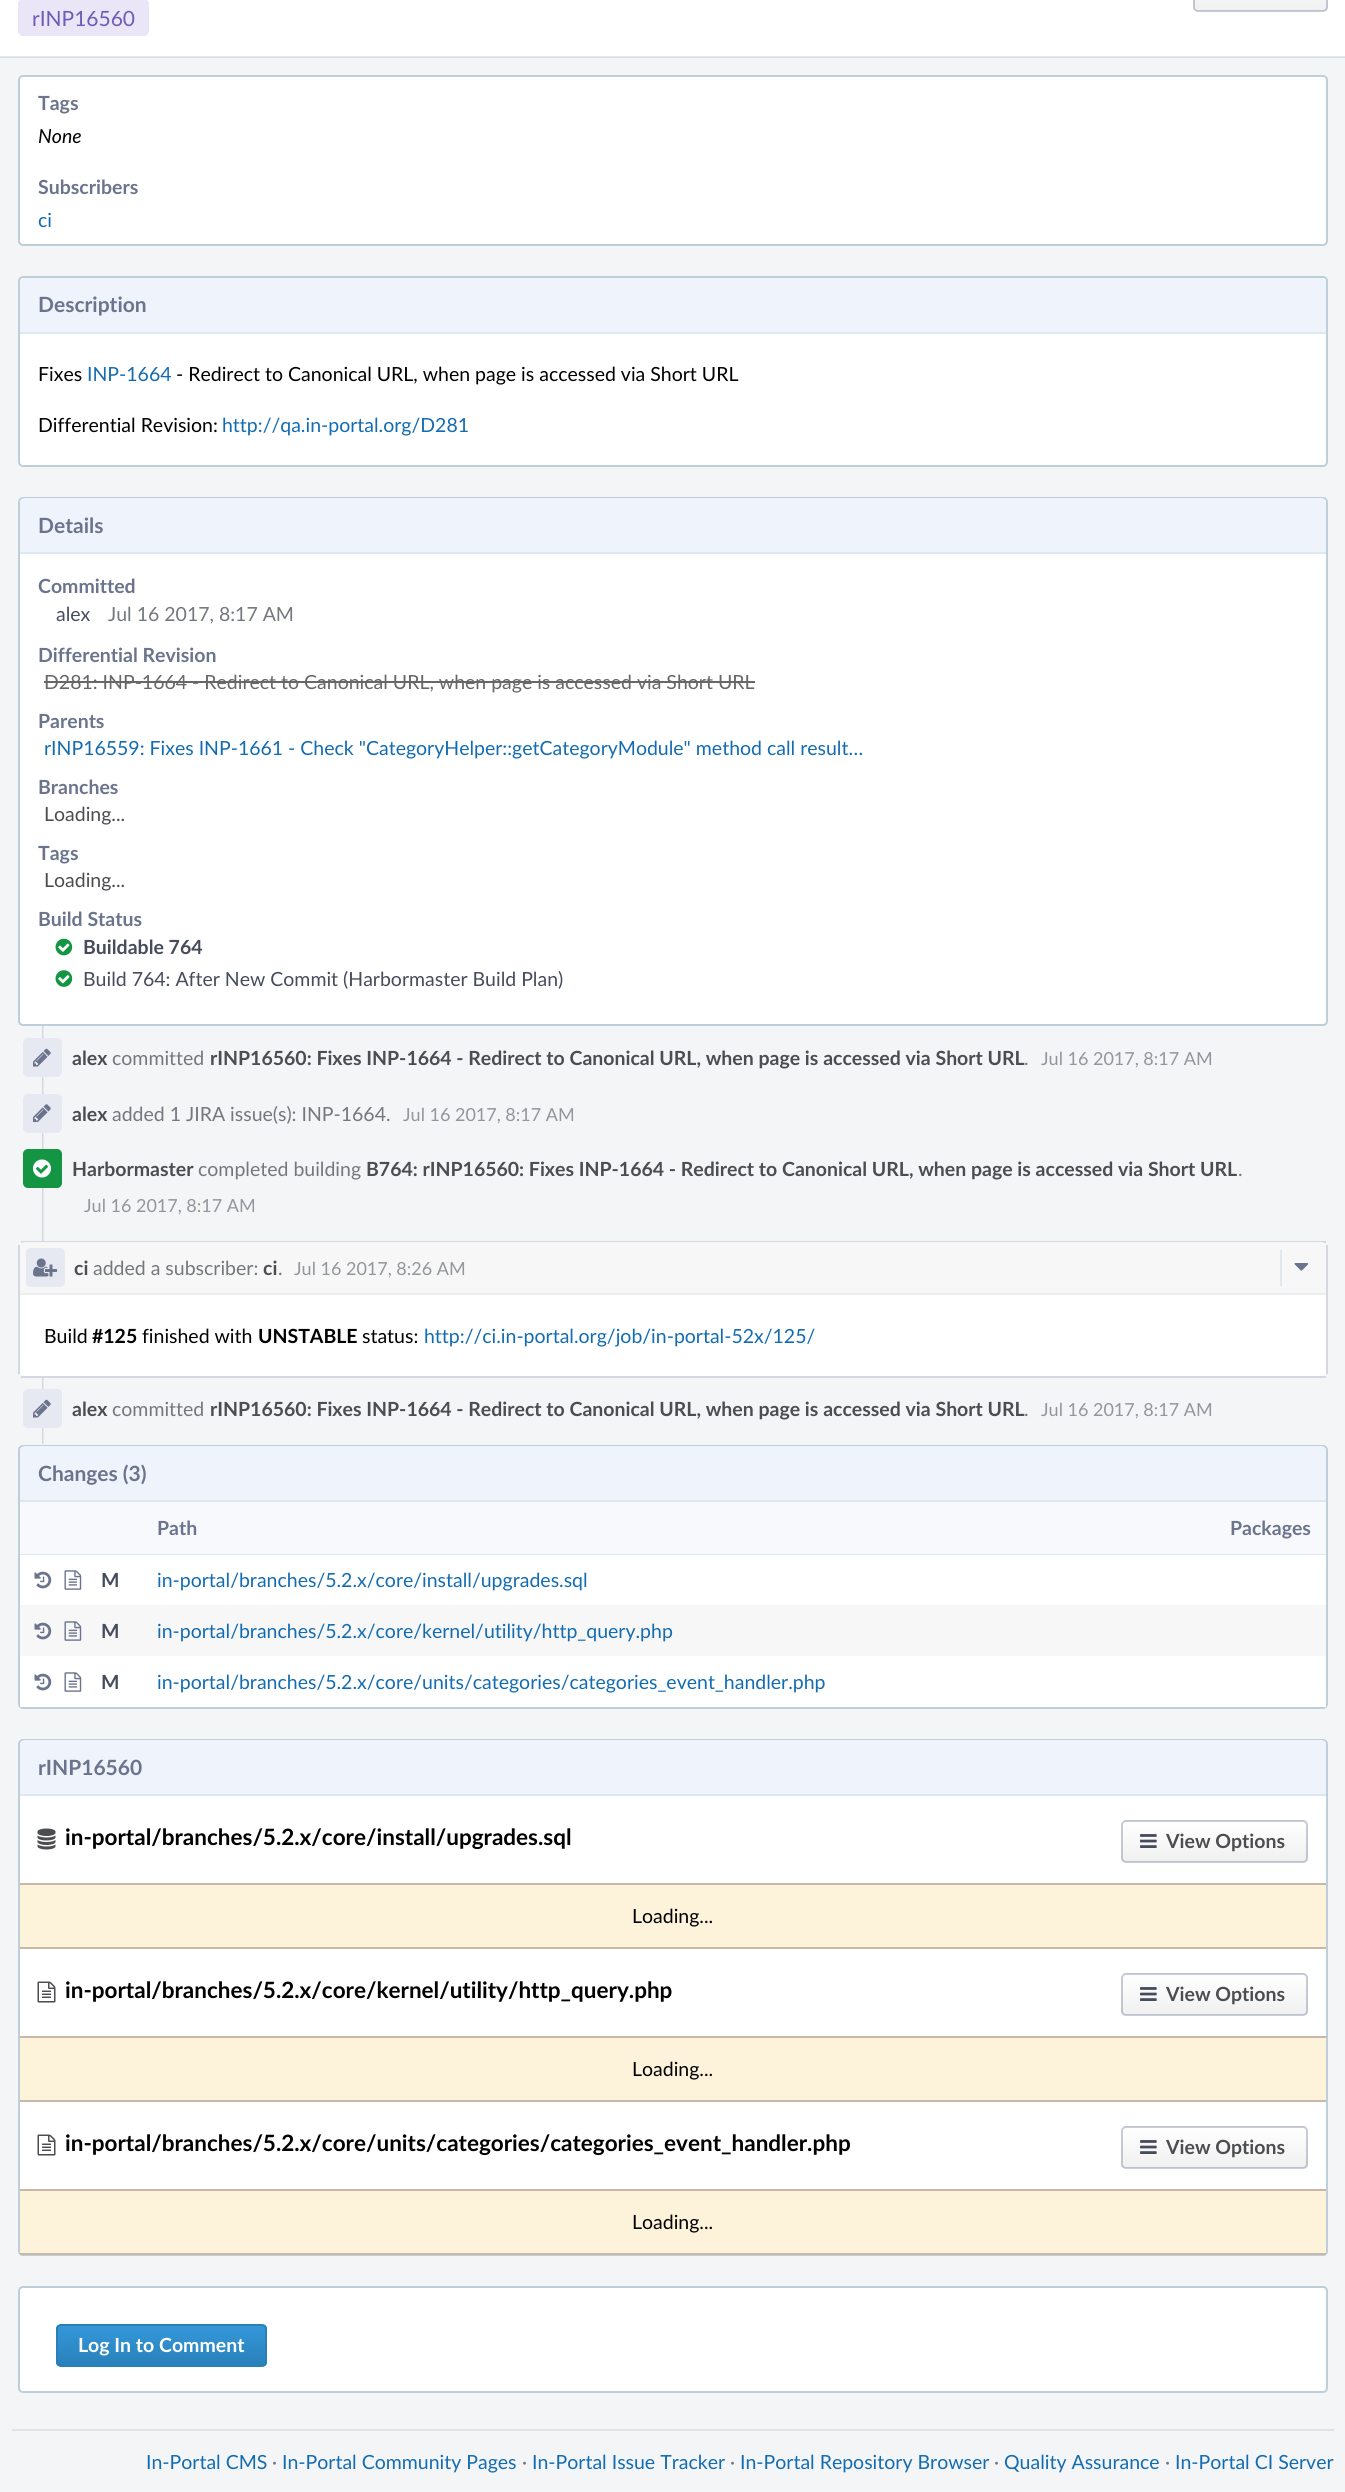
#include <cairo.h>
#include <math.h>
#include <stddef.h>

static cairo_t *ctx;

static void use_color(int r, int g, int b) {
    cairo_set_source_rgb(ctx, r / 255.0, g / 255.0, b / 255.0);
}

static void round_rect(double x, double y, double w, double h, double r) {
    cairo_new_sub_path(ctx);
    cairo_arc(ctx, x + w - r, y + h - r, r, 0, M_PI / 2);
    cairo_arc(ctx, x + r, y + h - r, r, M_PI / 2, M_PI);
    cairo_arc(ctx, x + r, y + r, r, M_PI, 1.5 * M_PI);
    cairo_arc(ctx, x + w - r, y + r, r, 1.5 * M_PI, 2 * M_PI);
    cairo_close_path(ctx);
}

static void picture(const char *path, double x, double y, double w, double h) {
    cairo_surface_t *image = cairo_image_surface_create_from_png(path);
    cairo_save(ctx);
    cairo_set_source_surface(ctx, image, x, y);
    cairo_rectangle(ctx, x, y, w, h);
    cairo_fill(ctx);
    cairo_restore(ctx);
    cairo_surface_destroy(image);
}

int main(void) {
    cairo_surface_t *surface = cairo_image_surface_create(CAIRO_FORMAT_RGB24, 1345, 2492);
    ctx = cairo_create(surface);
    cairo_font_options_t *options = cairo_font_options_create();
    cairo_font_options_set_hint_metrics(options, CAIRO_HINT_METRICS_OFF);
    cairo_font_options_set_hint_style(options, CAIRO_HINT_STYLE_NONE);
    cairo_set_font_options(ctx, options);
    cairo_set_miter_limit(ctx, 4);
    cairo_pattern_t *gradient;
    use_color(243, 245, 247);
    cairo_paint(ctx);
    use_color(220, 222, 224);
    cairo_rectangle(ctx, 0, 57, 1345, 1);
    cairo_fill(ctx);
    use_color(255, 255, 255);
    cairo_rectangle(ctx, 0, 0, 1345, 56);
    cairo_fill(ctx);
    use_color(231, 231, 231);
    cairo_rectangle(ctx, 0, 56, 1345, 1);
    cairo_fill(ctx);
    cairo_save(ctx);
    round_rect(1193, -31, 135, 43, 5);
    cairo_clip(ctx);
    gradient = cairo_pattern_create_linear(1260, -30, 1260, 11);
    cairo_pattern_add_color_stop_rgba(gradient, 0, 1, 1, 1, 1);
    cairo_pattern_add_color_stop_rgba(gradient, 1, 0.945, 0.941, 0.945, 1);
    cairo_set_source(ctx, gradient);
    cairo_pattern_destroy(gradient);
    cairo_rectangle(ctx, 1193, 0, 135, 11);
    cairo_fill(ctx);
    cairo_restore(ctx);
    round_rect(1194, -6, 133, 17, 4);
    cairo_set_source_rgba(ctx, 0.278, 0.341, 0.471, 0.3);
    cairo_stroke(ctx);
    use_color(234, 230, 247);
    round_rect(18, -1, 131, 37, 5);
    cairo_fill(ctx);
    cairo_select_font_face(ctx, "Lato", CAIRO_FONT_SLANT_NORMAL, CAIRO_FONT_WEIGHT_NORMAL);
    cairo_set_font_size(ctx, 21);
    use_color(110, 92, 182);
    cairo_move_to(ctx, 32, 26);
    cairo_show_text(ctx, "rINP16560");
    use_color(255, 255, 255);
    round_rect(19, 76, 1308, 169, 4);
    cairo_fill_preserve(ctx);
    use_color(191, 207, 218);
    cairo_stroke(ctx);
    cairo_select_font_face(ctx, "Lato", CAIRO_FONT_SLANT_NORMAL, CAIRO_FONT_WEIGHT_BOLD);
    cairo_set_font_size(ctx, 19.5);
    use_color(107, 116, 140);
    cairo_move_to(ctx, 38, 110);
    cairo_show_text(ctx, "Tags");
    cairo_select_font_face(ctx, "Lato", CAIRO_FONT_SLANT_ITALIC, CAIRO_FONT_WEIGHT_NORMAL);
    use_color(0, 0, 0);
    cairo_move_to(ctx, 38, 143);
    cairo_show_text(ctx, "None");
    cairo_select_font_face(ctx, "Lato", CAIRO_FONT_SLANT_NORMAL, CAIRO_FONT_WEIGHT_BOLD);
    use_color(107, 116, 140);
    cairo_move_to(ctx, 38, 194);
    cairo_show_text(ctx, "Subscribers");
    cairo_select_font_face(ctx, "Lato", CAIRO_FONT_SLANT_NORMAL, CAIRO_FONT_WEIGHT_NORMAL);
    use_color(19, 108, 178);
    cairo_move_to(ctx, 38, 227);
    cairo_show_text(ctx, "ci");
    use_color(255, 255, 255);
    round_rect(19, 277, 1308, 189, 4);
    cairo_fill_preserve(ctx);
    use_color(191, 207, 218);
    cairo_stroke(ctx);
    use_color(239, 243, 252);
    cairo_new_path(ctx);
    cairo_move_to(ctx, 25, 278);
    cairo_line_to(ctx, 1321, 278);
    cairo_curve_to(ctx, 1324, 278, 1326, 280, 1326, 283);
    cairo_line_to(ctx, 1326, 333);
    cairo_line_to(ctx, 20, 333);
    cairo_line_to(ctx, 20, 283);
    cairo_curve_to(ctx, 20, 280, 22, 278, 25, 278);
    cairo_close_path(ctx);
    cairo_fill(ctx);
    use_color(221, 232, 239);
    cairo_rectangle(ctx, 20, 332, 1306, 2);
    cairo_fill(ctx);
    cairo_select_font_face(ctx, "Lato", CAIRO_FONT_SLANT_NORMAL, CAIRO_FONT_WEIGHT_BOLD);
    cairo_set_font_size(ctx, 21);
    use_color(107, 116, 140);
    cairo_move_to(ctx, 38, 312);
    cairo_show_text(ctx, "Description");
    cairo_select_font_face(ctx, "Lato", CAIRO_FONT_SLANT_NORMAL, CAIRO_FONT_WEIGHT_NORMAL);
    cairo_set_font_size(ctx, 19.5);
    use_color(0, 0, 0);
    cairo_move_to(ctx, 38, 381);
    cairo_show_text(ctx, "Fixes");
    use_color(19, 108, 178);
    cairo_move_to(ctx, 87, 381);
    cairo_show_text(ctx, "INP-1664");
    use_color(0, 0, 0);
    cairo_move_to(ctx, 176, 381);
    cairo_show_text(ctx, "- Redirect to Canonical URL, when page is accessed via Short URL");
    cairo_move_to(ctx, 38, 432);
    cairo_show_text(ctx, "Differential Revision:");
    use_color(19, 108, 178);
    cairo_move_to(ctx, 222, 432);
    cairo_show_text(ctx, "http://qa.in-portal.org/D281");
    use_color(255, 255, 255);
    round_rect(19, 498, 1308, 527, 4);
    cairo_fill_preserve(ctx);
    use_color(191, 207, 218);
    cairo_stroke(ctx);
    use_color(239, 243, 252);
    cairo_new_path(ctx);
    cairo_move_to(ctx, 25, 498);
    cairo_line_to(ctx, 1321, 498);
    cairo_curve_to(ctx, 1324, 498, 1326, 500, 1326, 503);
    cairo_line_to(ctx, 1326, 554);
    cairo_line_to(ctx, 20, 554);
    cairo_line_to(ctx, 20, 503);
    cairo_curve_to(ctx, 20, 500, 22, 498, 25, 498);
    cairo_close_path(ctx);
    cairo_fill(ctx);
    use_color(221, 232, 239);
    cairo_rectangle(ctx, 20, 552, 1306, 2);
    cairo_fill(ctx);
    cairo_select_font_face(ctx, "Lato", CAIRO_FONT_SLANT_NORMAL, CAIRO_FONT_WEIGHT_BOLD);
    cairo_set_font_size(ctx, 21);
    use_color(107, 116, 140);
    cairo_move_to(ctx, 38, 533);
    cairo_show_text(ctx, "Details");
    cairo_set_font_size(ctx, 19.5);
    cairo_move_to(ctx, 38, 593);
    cairo_show_text(ctx, "Committed");
    cairo_select_font_face(ctx, "Lato", CAIRO_FONT_SLANT_NORMAL, CAIRO_FONT_WEIGHT_NORMAL);
    use_color(70, 76, 92);
    cairo_move_to(ctx, 56, 621);
    cairo_show_text(ctx, "alex");
    use_color(116, 119, 125);
    cairo_move_to(ctx, 108, 621);
    cairo_show_text(ctx, "Jul 16 2017, 8:17 AM");
    cairo_select_font_face(ctx, "Lato", CAIRO_FONT_SLANT_NORMAL, CAIRO_FONT_WEIGHT_BOLD);
    use_color(107, 116, 140);
    cairo_move_to(ctx, 38, 662);
    cairo_show_text(ctx, "Differential Revision");
    cairo_select_font_face(ctx, "Lato", CAIRO_FONT_SLANT_NORMAL, CAIRO_FONT_WEIGHT_NORMAL);
    use_color(103, 103, 103);
    cairo_move_to(ctx, 44, 689);
    cairo_show_text(ctx, "D281: INP-1664 - Redirect to Canonical URL, when page is accessed via Short URL");
    cairo_rectangle(ctx, 44, 681, 711, 2);
    cairo_fill(ctx);
    cairo_select_font_face(ctx, "Lato", CAIRO_FONT_SLANT_NORMAL, CAIRO_FONT_WEIGHT_BOLD);
    use_color(107, 116, 140);
    cairo_move_to(ctx, 38, 728);
    cairo_show_text(ctx, "Parents");
    cairo_select_font_face(ctx, "Lato", CAIRO_FONT_SLANT_NORMAL, CAIRO_FONT_WEIGHT_NORMAL);
    use_color(19, 108, 178);
    cairo_move_to(ctx, 44, 755);
    cairo_show_text(ctx, "rINP16559: Fixes INP-1661 - Check \"CategoryHelper::getCategoryModule\" method call result…");
    cairo_select_font_face(ctx, "Lato", CAIRO_FONT_SLANT_NORMAL, CAIRO_FONT_WEIGHT_BOLD);
    use_color(107, 116, 140);
    cairo_move_to(ctx, 38, 794);
    cairo_show_text(ctx, "Branches");
    cairo_select_font_face(ctx, "Lato", CAIRO_FONT_SLANT_NORMAL, CAIRO_FONT_WEIGHT_NORMAL);
    use_color(75, 77, 81);
    cairo_move_to(ctx, 44, 821);
    cairo_show_text(ctx, "Loading...");
    cairo_select_font_face(ctx, "Lato", CAIRO_FONT_SLANT_NORMAL, CAIRO_FONT_WEIGHT_BOLD);
    use_color(107, 116, 140);
    cairo_move_to(ctx, 38, 860);
    cairo_show_text(ctx, "Tags");
    cairo_select_font_face(ctx, "Lato", CAIRO_FONT_SLANT_NORMAL, CAIRO_FONT_WEIGHT_NORMAL);
    use_color(75, 77, 81);
    cairo_move_to(ctx, 44, 887);
    cairo_show_text(ctx, "Loading...");
    cairo_select_font_face(ctx, "Lato", CAIRO_FONT_SLANT_NORMAL, CAIRO_FONT_WEIGHT_BOLD);
    use_color(107, 116, 140);
    cairo_move_to(ctx, 38, 926);
    cairo_show_text(ctx, "Build Status");
    picture("img1.png", 55, 938, 18, 18);
    use_color(70, 76, 92);
    cairo_move_to(ctx, 83, 954);
    cairo_show_text(ctx, "Buildable 764");
    picture("img2.png", 55, 970, 18, 17);
    cairo_select_font_face(ctx, "Lato", CAIRO_FONT_SLANT_NORMAL, CAIRO_FONT_WEIGHT_NORMAL);
    cairo_move_to(ctx, 83, 986);
    cairo_show_text(ctx, "Build 764: After New Commit (Harbormaster Build Plan)");
    picture("img3.png", 42, 1026, 2, 418);
    use_color(230, 233, 241);
    round_rect(23, 1038, 39, 39, 5);
    cairo_fill(ctx);
    picture("img4.png", 33, 1048, 18, 19);
    cairo_select_font_face(ctx, "Lato", CAIRO_FONT_SLANT_NORMAL, CAIRO_FONT_WEIGHT_BOLD);
    use_color(75, 77, 81);
    cairo_move_to(ctx, 72, 1065);
    cairo_show_text(ctx, "alex");
    cairo_select_font_face(ctx, "Lato", CAIRO_FONT_SLANT_NORMAL, CAIRO_FONT_WEIGHT_NORMAL);
    use_color(116, 119, 125);
    cairo_move_to(ctx, 112, 1065);
    cairo_show_text(ctx, "committed");
    cairo_select_font_face(ctx, "Lato", CAIRO_FONT_SLANT_NORMAL, CAIRO_FONT_WEIGHT_BOLD);
    use_color(75, 77, 81);
    cairo_move_to(ctx, 210, 1065);
    cairo_show_text(ctx, "rINP16560: Fixes INP-1664 - Redirect to Canonical URL, when page is accessed via Short URL");
    cairo_select_font_face(ctx, "Lato", CAIRO_FONT_SLANT_NORMAL, CAIRO_FONT_WEIGHT_NORMAL);
    use_color(116, 119, 125);
    cairo_move_to(ctx, 1024, 1065);
    cairo_show_text(ctx, ".");
    cairo_set_font_size(ctx, 18);
    use_color(146, 150, 157);
    cairo_move_to(ctx, 1041, 1065);
    cairo_show_text(ctx, "Jul 16 2017, 8:17 AM");
    use_color(230, 233, 241);
    round_rect(23, 1094, 39, 39, 5);
    cairo_fill(ctx);
    picture("img5.png", 33, 1104, 18, 18);
    cairo_select_font_face(ctx, "Lato", CAIRO_FONT_SLANT_NORMAL, CAIRO_FONT_WEIGHT_BOLD);
    cairo_set_font_size(ctx, 19.5);
    use_color(75, 77, 81);
    cairo_move_to(ctx, 72, 1121);
    cairo_show_text(ctx, "alex");
    cairo_select_font_face(ctx, "Lato", CAIRO_FONT_SLANT_NORMAL, CAIRO_FONT_WEIGHT_NORMAL);
    use_color(116, 119, 125);
    cairo_move_to(ctx, 112, 1121);
    cairo_show_text(ctx, "added 1 JIRA issue(s): INP-1664.");
    cairo_set_font_size(ctx, 18);
    use_color(146, 150, 157);
    cairo_move_to(ctx, 403, 1121);
    cairo_show_text(ctx, "Jul 16 2017, 8:17 AM");
    use_color(19, 149, 67);
    round_rect(23, 1149, 39, 39, 5);
    cairo_fill(ctx);
    picture("img6.png", 33, 1159, 18, 19);
    cairo_select_font_face(ctx, "Lato", CAIRO_FONT_SLANT_NORMAL, CAIRO_FONT_WEIGHT_BOLD);
    cairo_set_font_size(ctx, 19.5);
    use_color(75, 77, 81);
    cairo_move_to(ctx, 72, 1176);
    cairo_show_text(ctx, "Harbormaster");
    cairo_select_font_face(ctx, "Lato", CAIRO_FONT_SLANT_NORMAL, CAIRO_FONT_WEIGHT_NORMAL);
    use_color(116, 119, 125);
    cairo_move_to(ctx, 198, 1176);
    cairo_show_text(ctx, "completed building");
    cairo_select_font_face(ctx, "Lato", CAIRO_FONT_SLANT_NORMAL, CAIRO_FONT_WEIGHT_BOLD);
    use_color(75, 77, 81);
    cairo_move_to(ctx, 366, 1176);
    cairo_show_text(ctx, "B764: rINP16560: Fixes INP-1664 - Redirect to Canonical URL, when page is accessed via Short URL");
    cairo_select_font_face(ctx, "Lato", CAIRO_FONT_SLANT_NORMAL, CAIRO_FONT_WEIGHT_NORMAL);
    use_color(116, 119, 125);
    cairo_move_to(ctx, 1238, 1176);
    cairo_show_text(ctx, ".");
    cairo_set_font_size(ctx, 18);
    use_color(146, 150, 157);
    cairo_move_to(ctx, 84, 1212);
    cairo_show_text(ctx, "Jul 16 2017, 8:17 AM");
    use_color(213, 216, 225);
    cairo_rectangle(ctx, 21, 1241, 1305, 2);
    cairo_fill(ctx);
    cairo_rectangle(ctx, 21, 1376, 1305, 2);
    cairo_fill(ctx);
    cairo_rectangle(ctx, 1326, 1245, 2, 129);
    cairo_fill(ctx);
    cairo_rectangle(ctx, 18, 1245, 2, 129);
    cairo_fill(ctx);
    use_color(247, 247, 247);
    cairo_new_path(ctx);
    cairo_move_to(ctx, 25, 1242);
    cairo_line_to(ctx, 1321, 1242);
    cairo_curve_to(ctx, 1324, 1242, 1326, 1244, 1326, 1247);
    cairo_line_to(ctx, 1326, 1293);
    cairo_line_to(ctx, 20, 1293);
    cairo_line_to(ctx, 20, 1247);
    cairo_curve_to(ctx, 20, 1244, 22, 1242, 25, 1242);
    cairo_close_path(ctx);
    cairo_fill(ctx);
    use_color(230, 233, 241);
    round_rect(26, 1248, 39, 39, 5);
    cairo_fill(ctx);
    picture("img7.png", 33, 1258, 24, 19);
    cairo_select_font_face(ctx, "Lato", CAIRO_FONT_SLANT_NORMAL, CAIRO_FONT_WEIGHT_BOLD);
    cairo_set_font_size(ctx, 19.5);
    use_color(75, 77, 81);
    cairo_move_to(ctx, 74, 1275);
    cairo_show_text(ctx, "ci");
    cairo_select_font_face(ctx, "Lato", CAIRO_FONT_SLANT_NORMAL, CAIRO_FONT_WEIGHT_NORMAL);
    use_color(116, 119, 125);
    cairo_move_to(ctx, 93, 1275);
    cairo_show_text(ctx, "added a subscriber:");
    cairo_select_font_face(ctx, "Lato", CAIRO_FONT_SLANT_NORMAL, CAIRO_FONT_WEIGHT_BOLD);
    use_color(75, 77, 81);
    cairo_move_to(ctx, 263, 1275);
    cairo_show_text(ctx, "ci");
    cairo_select_font_face(ctx, "Lato", CAIRO_FONT_SLANT_NORMAL, CAIRO_FONT_WEIGHT_NORMAL);
    use_color(116, 119, 125);
    cairo_move_to(ctx, 278, 1275);
    cairo_show_text(ctx, ".");
    cairo_set_font_size(ctx, 18);
    use_color(146, 150, 157);
    cairo_move_to(ctx, 294, 1275);
    cairo_show_text(ctx, "Jul 16 2017, 8:26 AM");
    use_color(221, 232, 239);
    cairo_rectangle(ctx, 1280, 1250, 2, 36);
    cairo_fill(ctx);
    picture("img8.png", 1294, 1263, 15, 8);
    use_color(255, 255, 255);
    cairo_new_path(ctx);
    cairo_move_to(ctx, 20, 1293);
    cairo_line_to(ctx, 1326, 1293);
    cairo_line_to(ctx, 1326, 1371);
    cairo_curve_to(ctx, 1326, 1374, 1324, 1376, 1321, 1376);
    cairo_line_to(ctx, 25, 1376);
    cairo_curve_to(ctx, 22, 1376, 20, 1374, 20, 1371);
    cairo_close_path(ctx);
    cairo_fill(ctx);
    use_color(237, 238, 242);
    cairo_rectangle(ctx, 20, 1293, 1306, 2);
    cairo_fill(ctx);
    cairo_set_font_size(ctx, 19.5);
    use_color(0, 0, 0);
    cairo_move_to(ctx, 44, 1343);
    cairo_show_text(ctx, "Build");
    cairo_select_font_face(ctx, "Lato", CAIRO_FONT_SLANT_NORMAL, CAIRO_FONT_WEIGHT_BOLD);
    cairo_move_to(ctx, 92, 1343);
    cairo_show_text(ctx, "#125");
    cairo_select_font_face(ctx, "Lato", CAIRO_FONT_SLANT_NORMAL, CAIRO_FONT_WEIGHT_NORMAL);
    cairo_move_to(ctx, 142, 1343);
    cairo_show_text(ctx, "finished with");
    cairo_select_font_face(ctx, "Lato", CAIRO_FONT_SLANT_NORMAL, CAIRO_FONT_WEIGHT_BOLD);
    cairo_move_to(ctx, 258, 1343);
    cairo_show_text(ctx, "UNSTABLE");
    cairo_select_font_face(ctx, "Lato", CAIRO_FONT_SLANT_NORMAL, CAIRO_FONT_WEIGHT_NORMAL);
    cairo_move_to(ctx, 362, 1343);
    cairo_show_text(ctx, "status:");
    use_color(19, 108, 178);
    cairo_move_to(ctx, 424, 1343);
    cairo_show_text(ctx, "http://ci.in-portal.org/job/in-portal-52x/125/");
    use_color(230, 233, 241);
    round_rect(23, 1389, 39, 39, 5);
    cairo_fill(ctx);
    picture("img4.png", 33, 1399, 18, 19);
    cairo_select_font_face(ctx, "Lato", CAIRO_FONT_SLANT_NORMAL, CAIRO_FONT_WEIGHT_BOLD);
    use_color(75, 77, 81);
    cairo_move_to(ctx, 72, 1416);
    cairo_show_text(ctx, "alex");
    cairo_select_font_face(ctx, "Lato", CAIRO_FONT_SLANT_NORMAL, CAIRO_FONT_WEIGHT_NORMAL);
    use_color(116, 119, 125);
    cairo_move_to(ctx, 112, 1416);
    cairo_show_text(ctx, "committed");
    cairo_select_font_face(ctx, "Lato", CAIRO_FONT_SLANT_NORMAL, CAIRO_FONT_WEIGHT_BOLD);
    use_color(75, 77, 81);
    cairo_move_to(ctx, 210, 1416);
    cairo_show_text(ctx, "rINP16560: Fixes INP-1664 - Redirect to Canonical URL, when page is accessed via Short URL");
    cairo_select_font_face(ctx, "Lato", CAIRO_FONT_SLANT_NORMAL, CAIRO_FONT_WEIGHT_NORMAL);
    use_color(116, 119, 125);
    cairo_move_to(ctx, 1024, 1416);
    cairo_show_text(ctx, ".");
    cairo_set_font_size(ctx, 18);
    use_color(146, 150, 157);
    cairo_move_to(ctx, 1041, 1416);
    cairo_show_text(ctx, "Jul 16 2017, 8:17 AM");
    use_color(255, 255, 255);
    round_rect(19, 1446, 1308, 262, 4);
    cairo_fill_preserve(ctx);
    use_color(191, 207, 218);
    cairo_stroke(ctx);
    use_color(239, 243, 252);
    cairo_new_path(ctx);
    cairo_move_to(ctx, 25, 1446);
    cairo_line_to(ctx, 1321, 1446);
    cairo_curve_to(ctx, 1324, 1446, 1326, 1448, 1326, 1451);
    cairo_line_to(ctx, 1326, 1502);
    cairo_line_to(ctx, 20, 1502);
    cairo_line_to(ctx, 20, 1451);
    cairo_curve_to(ctx, 20, 1448, 22, 1446, 25, 1446);
    cairo_close_path(ctx);
    cairo_fill(ctx);
    use_color(221, 232, 239);
    cairo_rectangle(ctx, 20, 1500, 1306, 2);
    cairo_fill(ctx);
    cairo_select_font_face(ctx, "Lato", CAIRO_FONT_SLANT_NORMAL, CAIRO_FONT_WEIGHT_BOLD);
    cairo_set_font_size(ctx, 21);
    use_color(107, 116, 140);
    cairo_move_to(ctx, 38, 1481);
    cairo_show_text(ctx, "Changes (3)");
    use_color(255, 255, 255);
    cairo_rectangle(ctx, 20, 1704, 1306, 3);
    cairo_fill(ctx);
    use_color(248, 249, 252);
    cairo_rectangle(ctx, 20, 1502, 1306, 52);
    cairo_fill(ctx);
    cairo_set_font_size(ctx, 19.5);
    use_color(107, 116, 140);
    cairo_move_to(ctx, 157, 1535);
    cairo_show_text(ctx, "Path");
    use_color(221, 232, 239);
    cairo_rectangle(ctx, 20, 1554, 1306, 1);
    cairo_fill(ctx);
    use_color(107, 116, 140);
    cairo_move_to(ctx, 1230, 1535);
    cairo_show_text(ctx, "Packages");
    picture("img9.png", 34, 1571, 18, 18);
    picture("img10.png", 64, 1570, 18, 20);
    use_color(70, 76, 92);
    cairo_move_to(ctx, 101, 1587);
    cairo_show_text(ctx, "M");
    cairo_select_font_face(ctx, "Lato", CAIRO_FONT_SLANT_NORMAL, CAIRO_FONT_WEIGHT_NORMAL);
    use_color(19, 108, 178);
    cairo_move_to(ctx, 157, 1587);
    cairo_show_text(ctx, "in-portal/branches/5.2.x/core/install/upgrades.sql");
    use_color(247, 247, 247);
    cairo_rectangle(ctx, 20, 1605, 1306, 51);
    cairo_fill(ctx);
    picture("img11.png", 34, 1622, 18, 18);
    picture("img12.png", 64, 1621, 18, 20);
    cairo_select_font_face(ctx, "Lato", CAIRO_FONT_SLANT_NORMAL, CAIRO_FONT_WEIGHT_BOLD);
    use_color(70, 76, 92);
    cairo_move_to(ctx, 101, 1638);
    cairo_show_text(ctx, "M");
    cairo_select_font_face(ctx, "Lato", CAIRO_FONT_SLANT_NORMAL, CAIRO_FONT_WEIGHT_NORMAL);
    use_color(19, 108, 178);
    cairo_move_to(ctx, 157, 1638);
    cairo_show_text(ctx, "in-portal/branches/5.2.x/core/kernel/utility/http_query.php");
    picture("img9.png", 34, 1673, 18, 18);
    picture("img10.png", 64, 1672, 18, 20);
    cairo_select_font_face(ctx, "Lato", CAIRO_FONT_SLANT_NORMAL, CAIRO_FONT_WEIGHT_BOLD);
    use_color(70, 76, 92);
    cairo_move_to(ctx, 101, 1689);
    cairo_show_text(ctx, "M");
    cairo_select_font_face(ctx, "Lato", CAIRO_FONT_SLANT_NORMAL, CAIRO_FONT_WEIGHT_NORMAL);
    use_color(19, 108, 178);
    cairo_move_to(ctx, 157, 1689);
    cairo_show_text(ctx, "in-portal/branches/5.2.x/core/units/categories/categories_event_handler.php");
    use_color(255, 255, 255);
    round_rect(19, 1740, 1308, 515, 4);
    cairo_fill_preserve(ctx);
    use_color(191, 207, 218);
    cairo_stroke(ctx);
    use_color(239, 243, 252);
    cairo_new_path(ctx);
    cairo_move_to(ctx, 25, 1740);
    cairo_line_to(ctx, 1321, 1740);
    cairo_curve_to(ctx, 1324, 1740, 1326, 1742, 1326, 1745);
    cairo_line_to(ctx, 1326, 1796);
    cairo_line_to(ctx, 20, 1796);
    cairo_line_to(ctx, 20, 1745);
    cairo_curve_to(ctx, 20, 1742, 22, 1740, 25, 1740);
    cairo_close_path(ctx);
    cairo_fill(ctx);
    use_color(221, 232, 239);
    cairo_rectangle(ctx, 20, 1794, 1306, 2);
    cairo_fill(ctx);
    cairo_select_font_face(ctx, "Lato", CAIRO_FONT_SLANT_NORMAL, CAIRO_FONT_WEIGHT_BOLD);
    cairo_set_font_size(ctx, 21);
    use_color(107, 116, 140);
    cairo_move_to(ctx, 38, 1775);
    cairo_show_text(ctx, "rINP16560");
    picture("img13.png", 37, 1828, 19, 22);
    cairo_set_font_size(ctx, 22.5);
    use_color(0, 0, 0);
    cairo_move_to(ctx, 65, 1845);
    cairo_show_text(ctx, "in-portal/branches/5.2.x/core/install/upgrades.sql");
    cairo_save(ctx);
    round_rect(1121, 1820, 187, 43, 5);
    cairo_clip(ctx);
    gradient = cairo_pattern_create_linear(1214, 1781, 1214, 1821);
    cairo_pattern_add_color_stop_rgba(gradient, 0, 1, 1, 1, 1);
    cairo_pattern_add_color_stop_rgba(gradient, 1, 0.945, 0.941, 0.945, 1);
    cairo_set_source(ctx, gradient);
    cairo_pattern_destroy(gradient);
    cairo_rectangle(ctx, 1121, 1820, 187, 1);
    cairo_fill(ctx);
    gradient = cairo_pattern_create_linear(1214, 1821, 1214, 1862);
    cairo_pattern_add_color_stop_rgba(gradient, 0, 1, 1, 1, 1);
    cairo_pattern_add_color_stop_rgba(gradient, 1, 0.945, 0.941, 0.945, 1);
    cairo_set_source(ctx, gradient);
    cairo_pattern_destroy(gradient);
    cairo_rectangle(ctx, 1121, 1821, 187, 41);
    cairo_fill(ctx);
    cairo_restore(ctx);
    round_rect(1122, 1821, 185, 41, 4);
    cairo_set_source_rgba(ctx, 0.278, 0.341, 0.471, 0.3);
    cairo_stroke(ctx);
    picture("img14.png", 1140, 1834, 17, 14);
    cairo_set_font_size(ctx, 19.5);
    use_color(75, 77, 81);
    cairo_move_to(ctx, 1166, 1848);
    cairo_show_text(ctx, "View Options");
    use_color(253, 243, 218);
    cairo_rectangle(ctx, 20, 1885, 1306, 62);
    cairo_fill(ctx);
    use_color(201, 184, 168);
    cairo_rectangle(ctx, 20, 1883, 1306, 2);
    cairo_fill(ctx);
    cairo_rectangle(ctx, 20, 1947, 1306, 2);
    cairo_fill(ctx);
    cairo_select_font_face(ctx, "Lato", CAIRO_FONT_SLANT_NORMAL, CAIRO_FONT_WEIGHT_NORMAL);
    use_color(0, 0, 0);
    cairo_move_to(ctx, 632, 1923);
    cairo_show_text(ctx, "Loading...");
    picture("img15.png", 37, 1981, 19, 22);
    cairo_select_font_face(ctx, "Lato", CAIRO_FONT_SLANT_NORMAL, CAIRO_FONT_WEIGHT_BOLD);
    cairo_set_font_size(ctx, 22.5);
    cairo_move_to(ctx, 65, 1998);
    cairo_show_text(ctx, "in-portal/branches/5.2.x/core/kernel/utility/http_query.php");
    cairo_save(ctx);
    round_rect(1121, 1973, 187, 43, 5);
    cairo_clip(ctx);
    gradient = cairo_pattern_create_linear(1214, 1934, 1214, 1974);
    cairo_pattern_add_color_stop_rgba(gradient, 0, 1, 1, 1, 1);
    cairo_pattern_add_color_stop_rgba(gradient, 1, 0.945, 0.941, 0.945, 1);
    cairo_set_source(ctx, gradient);
    cairo_pattern_destroy(gradient);
    cairo_rectangle(ctx, 1121, 1973, 187, 1);
    cairo_fill(ctx);
    gradient = cairo_pattern_create_linear(1214, 1974, 1214, 2015);
    cairo_pattern_add_color_stop_rgba(gradient, 0, 1, 1, 1, 1);
    cairo_pattern_add_color_stop_rgba(gradient, 1, 0.945, 0.941, 0.945, 1);
    cairo_set_source(ctx, gradient);
    cairo_pattern_destroy(gradient);
    cairo_rectangle(ctx, 1121, 1974, 187, 41);
    cairo_fill(ctx);
    cairo_restore(ctx);
    round_rect(1122, 1974, 185, 41, 4);
    cairo_set_source_rgba(ctx, 0.278, 0.341, 0.471, 0.3);
    cairo_stroke(ctx);
    picture("img14.png", 1140, 1987, 17, 14);
    cairo_set_font_size(ctx, 19.5);
    use_color(75, 77, 81);
    cairo_move_to(ctx, 1166, 2001);
    cairo_show_text(ctx, "View Options");
    use_color(253, 243, 218);
    cairo_rectangle(ctx, 20, 2038, 1306, 62);
    cairo_fill(ctx);
    use_color(201, 184, 168);
    cairo_rectangle(ctx, 20, 2036, 1306, 2);
    cairo_fill(ctx);
    cairo_rectangle(ctx, 20, 2100, 1306, 2);
    cairo_fill(ctx);
    cairo_select_font_face(ctx, "Lato", CAIRO_FONT_SLANT_NORMAL, CAIRO_FONT_WEIGHT_NORMAL);
    use_color(0, 0, 0);
    cairo_move_to(ctx, 632, 2076);
    cairo_show_text(ctx, "Loading...");
    picture("img15.png", 37, 2134, 19, 22);
    cairo_select_font_face(ctx, "Lato", CAIRO_FONT_SLANT_NORMAL, CAIRO_FONT_WEIGHT_BOLD);
    cairo_set_font_size(ctx, 22.5);
    cairo_move_to(ctx, 65, 2151);
    cairo_show_text(ctx, "in-portal/branches/5.2.x/core/units/categories/categories_event_handler.php");
    cairo_save(ctx);
    round_rect(1121, 2126, 187, 43, 5);
    cairo_clip(ctx);
    gradient = cairo_pattern_create_linear(1214, 2087, 1214, 2127);
    cairo_pattern_add_color_stop_rgba(gradient, 0, 1, 1, 1, 1);
    cairo_pattern_add_color_stop_rgba(gradient, 1, 0.945, 0.941, 0.945, 1);
    cairo_set_source(ctx, gradient);
    cairo_pattern_destroy(gradient);
    cairo_rectangle(ctx, 1121, 2126, 187, 1);
    cairo_fill(ctx);
    gradient = cairo_pattern_create_linear(1214, 2127, 1214, 2168);
    cairo_pattern_add_color_stop_rgba(gradient, 0, 1, 1, 1, 1);
    cairo_pattern_add_color_stop_rgba(gradient, 1, 0.945, 0.941, 0.945, 1);
    cairo_set_source(ctx, gradient);
    cairo_pattern_destroy(gradient);
    cairo_rectangle(ctx, 1121, 2127, 187, 41);
    cairo_fill(ctx);
    cairo_restore(ctx);
    round_rect(1122, 2127, 185, 41, 4);
    cairo_set_source_rgba(ctx, 0.278, 0.341, 0.471, 0.3);
    cairo_stroke(ctx);
    picture("img14.png", 1140, 2140, 17, 14);
    cairo_set_font_size(ctx, 19.5);
    use_color(75, 77, 81);
    cairo_move_to(ctx, 1166, 2154);
    cairo_show_text(ctx, "View Options");
    use_color(253, 243, 218);
    cairo_rectangle(ctx, 20, 2191, 1306, 62);
    cairo_fill(ctx);
    use_color(201, 184, 168);
    cairo_rectangle(ctx, 20, 2189, 1306, 2);
    cairo_fill(ctx);
    cairo_rectangle(ctx, 20, 2253, 1306, 2);
    cairo_fill(ctx);
    cairo_select_font_face(ctx, "Lato", CAIRO_FONT_SLANT_NORMAL, CAIRO_FONT_WEIGHT_NORMAL);
    use_color(0, 0, 0);
    cairo_move_to(ctx, 632, 2229);
    cairo_show_text(ctx, "Loading...");
    use_color(255, 255, 255);
    round_rect(19, 2287, 1308, 105, 4);
    cairo_fill_preserve(ctx);
    use_color(191, 207, 218);
    cairo_stroke(ctx);
    cairo_save(ctx);
    round_rect(56, 2324, 211, 43, 5);
    cairo_clip(ctx);
    gradient = cairo_pattern_create_linear(161, 2325, 161, 2366);
    cairo_pattern_add_color_stop_rgba(gradient, 0, 0.204, 0.596, 0.859, 1);
    cairo_pattern_add_color_stop_rgba(gradient, 1, 0.161, 0.502, 0.725, 1);
    cairo_set_source(ctx, gradient);
    cairo_pattern_destroy(gradient);
    cairo_rectangle(ctx, 56, 2325, 211, 41);
    cairo_fill(ctx);
    cairo_restore(ctx);
    round_rect(57, 2325, 209, 41, 4);
    use_color(41, 128, 185);
    cairo_stroke(ctx);
    cairo_select_font_face(ctx, "Lato", CAIRO_FONT_SLANT_NORMAL, CAIRO_FONT_WEIGHT_BOLD);
    use_color(255, 255, 255);
    cairo_move_to(ctx, 78, 2352);
    cairo_show_text(ctx, "Log In to Comment");
    use_color(224, 226, 228);
    cairo_rectangle(ctx, 12, 2429, 1322, 2);
    cairo_fill(ctx);
    cairo_select_font_face(ctx, "Lato", CAIRO_FONT_SLANT_NORMAL, CAIRO_FONT_WEIGHT_NORMAL);
    use_color(19, 108, 178);
    cairo_move_to(ctx, 146, 2469);
    cairo_show_text(ctx, "In-Portal CMS");
    use_color(116, 119, 125);
    cairo_move_to(ctx, 272, 2469);
    cairo_show_text(ctx, "·");
    use_color(19, 108, 178);
    cairo_move_to(ctx, 282, 2469);
    cairo_show_text(ctx, "In-Portal Community Pages");
    use_color(116, 119, 125);
    cairo_move_to(ctx, 522, 2469);
    cairo_show_text(ctx, "·");
    use_color(19, 108, 178);
    cairo_move_to(ctx, 532, 2469);
    cairo_show_text(ctx, "In-Portal Issue Tracker");
    use_color(116, 119, 125);
    cairo_move_to(ctx, 730, 2469);
    cairo_show_text(ctx, "·");
    use_color(19, 108, 178);
    cairo_move_to(ctx, 740, 2469);
    cairo_show_text(ctx, "In-Portal Repository Browser");
    use_color(116, 119, 125);
    cairo_move_to(ctx, 994, 2469);
    cairo_show_text(ctx, "·");
    use_color(19, 108, 178);
    cairo_move_to(ctx, 1004, 2469);
    cairo_show_text(ctx, "Quality Assurance");
    use_color(116, 119, 125);
    cairo_move_to(ctx, 1165, 2469);
    cairo_show_text(ctx, "·");
    use_color(19, 108, 178);
    cairo_move_to(ctx, 1175, 2469);
    cairo_show_text(ctx, "In-Portal CI Server");
    cairo_surface_write_to_png(surface, "result.png");
    cairo_font_options_destroy(options);
    cairo_destroy(ctx);
    cairo_surface_destroy(surface);
    return 0;
}
